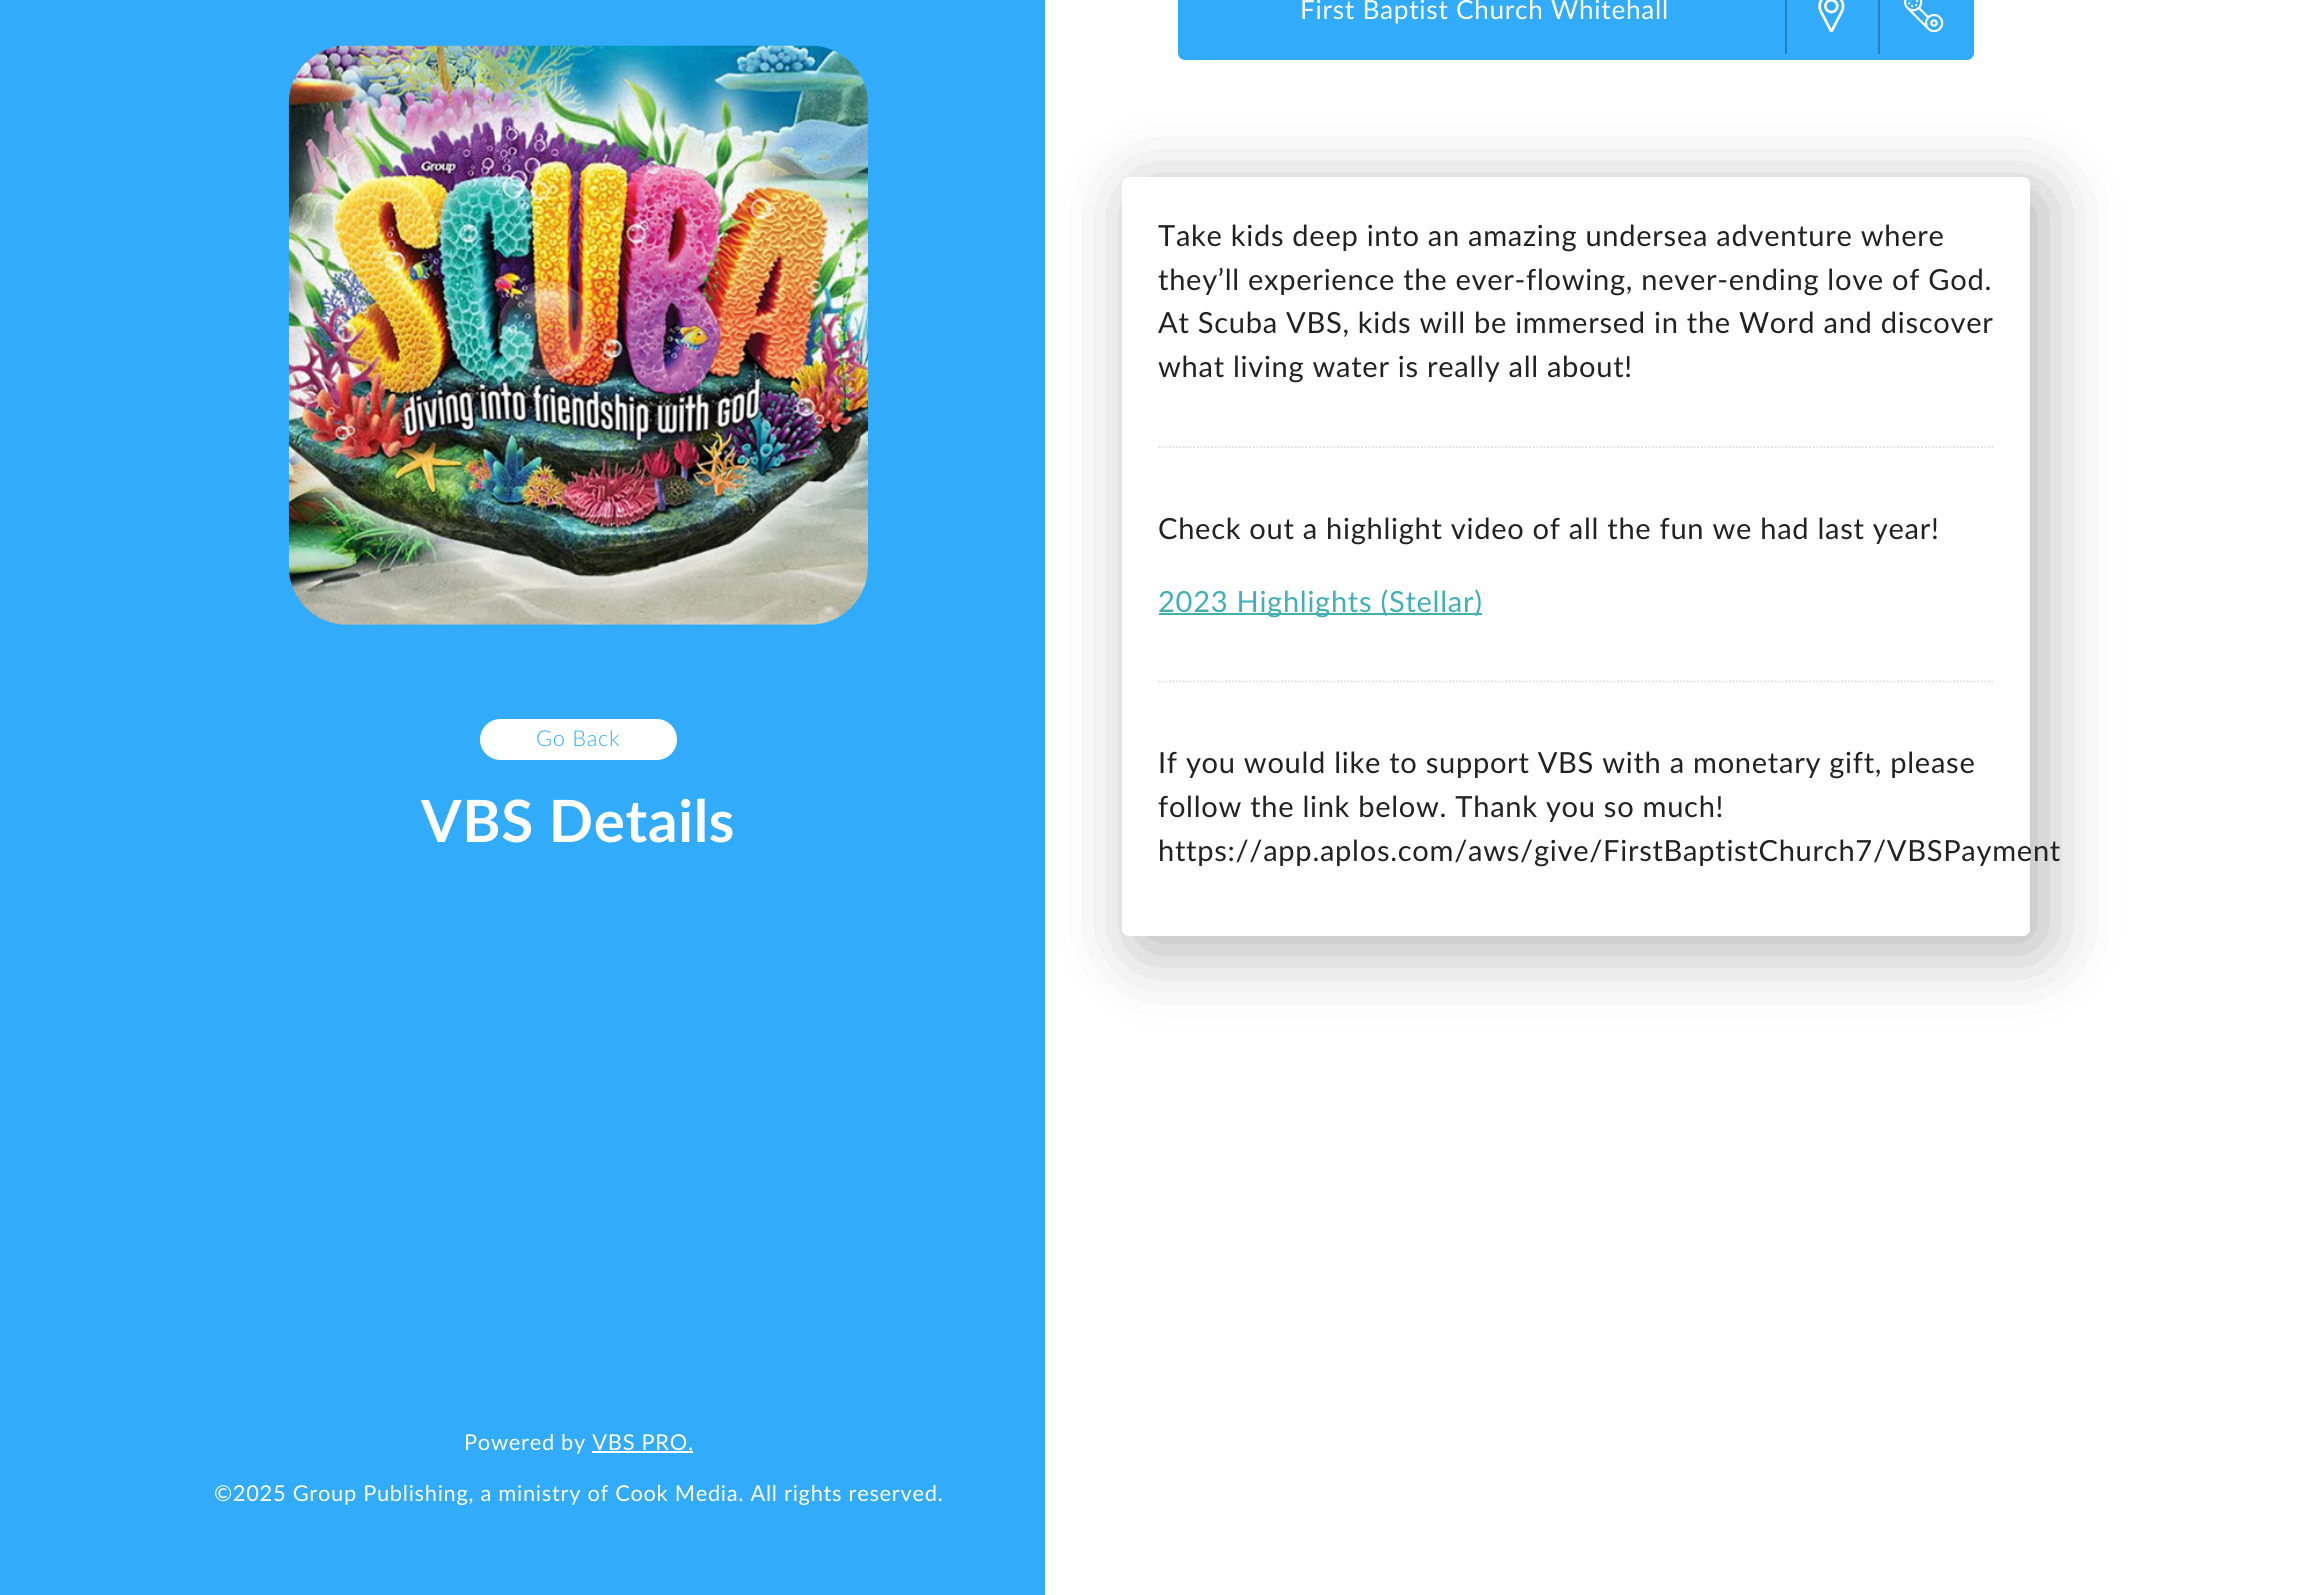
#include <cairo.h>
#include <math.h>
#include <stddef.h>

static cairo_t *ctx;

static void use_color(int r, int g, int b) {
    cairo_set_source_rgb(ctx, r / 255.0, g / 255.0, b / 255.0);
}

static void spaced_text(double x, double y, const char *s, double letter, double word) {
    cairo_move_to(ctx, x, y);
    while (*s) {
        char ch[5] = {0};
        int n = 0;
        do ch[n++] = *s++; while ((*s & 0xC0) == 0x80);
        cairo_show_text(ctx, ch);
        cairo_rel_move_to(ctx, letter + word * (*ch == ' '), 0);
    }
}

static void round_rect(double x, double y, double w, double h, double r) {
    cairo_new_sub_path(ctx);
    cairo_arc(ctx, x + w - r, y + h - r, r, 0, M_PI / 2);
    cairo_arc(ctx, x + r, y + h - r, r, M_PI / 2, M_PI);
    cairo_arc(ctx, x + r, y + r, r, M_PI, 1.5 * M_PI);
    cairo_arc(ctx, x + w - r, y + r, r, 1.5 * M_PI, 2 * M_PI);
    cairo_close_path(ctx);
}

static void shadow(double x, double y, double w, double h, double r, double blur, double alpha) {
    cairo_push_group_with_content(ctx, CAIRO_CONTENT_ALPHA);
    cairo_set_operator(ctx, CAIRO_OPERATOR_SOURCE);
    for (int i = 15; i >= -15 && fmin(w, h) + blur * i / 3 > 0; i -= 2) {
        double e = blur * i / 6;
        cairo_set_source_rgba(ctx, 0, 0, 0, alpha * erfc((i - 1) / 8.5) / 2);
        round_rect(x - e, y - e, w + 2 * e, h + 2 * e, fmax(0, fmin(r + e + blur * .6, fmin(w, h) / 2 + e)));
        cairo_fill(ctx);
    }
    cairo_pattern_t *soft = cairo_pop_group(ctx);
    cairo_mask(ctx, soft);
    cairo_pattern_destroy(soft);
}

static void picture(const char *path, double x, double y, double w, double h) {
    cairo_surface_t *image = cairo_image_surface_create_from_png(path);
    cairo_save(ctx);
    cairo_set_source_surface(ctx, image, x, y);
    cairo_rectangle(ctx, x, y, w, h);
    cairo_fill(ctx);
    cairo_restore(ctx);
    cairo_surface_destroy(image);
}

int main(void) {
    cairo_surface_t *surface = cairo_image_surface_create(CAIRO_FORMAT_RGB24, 2319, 1595);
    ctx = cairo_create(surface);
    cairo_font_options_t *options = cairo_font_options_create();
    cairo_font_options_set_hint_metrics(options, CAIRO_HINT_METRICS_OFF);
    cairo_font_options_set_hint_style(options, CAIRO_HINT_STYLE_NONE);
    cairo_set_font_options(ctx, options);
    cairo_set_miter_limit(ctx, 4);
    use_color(255, 255, 255);
    cairo_paint(ctx);
    use_color(50, 171, 250);
    cairo_new_path(ctx);
    cairo_move_to(ctx, 1180.5, -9.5);
    cairo_line_to(ctx, 1971.5, -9.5);
    cairo_line_to(ctx, 1971.5, 53);
    cairo_curve_to(ctx, 1971.5, 55.5, 1969.5, 57.5, 1967, 57.5);
    cairo_line_to(ctx, 1185, 57.5);
    cairo_curve_to(ctx, 1182.5, 57.5, 1180.5, 55.5, 1180.5, 53);
    cairo_close_path(ctx);
    cairo_fill_preserve(ctx);
    cairo_set_line_width(ctx, 5);
    cairo_stroke(ctx);
    cairo_select_font_face(ctx, "Lato", CAIRO_FONT_SLANT_NORMAL, CAIRO_FONT_WEIGHT_NORMAL);
    cairo_set_font_size(ctx, 26.25);
    use_color(255, 255, 255);
    spaced_text(1300, 19, "First Baptist Church Whitehall", 0.7, 0);
    use_color(38, 128, 188);
    cairo_rectangle(ctx, 1785, 0, 2, 54);
    cairo_fill(ctx);
    picture("img1.png", 1818, 0, 27, 32);
    cairo_rectangle(ctx, 1878, 0, 2, 54);
    cairo_fill(ctx);
    picture("img2.png", 1904, 0, 40, 32);
    use_color(0, 0, 0);
    shadow(1136, 191, 908, 759, 7, 36.5, 0.3);
    use_color(255, 255, 255);
    round_rect(1122, 177, 908, 759, 7);
    cairo_fill(ctx);
    cairo_set_font_size(ctx, 29.1);
    use_color(34, 34, 34);
    spaced_text(1158, 246, "Take kids deep into an amazing undersea adventure where", 0.7, 0);
    spaced_text(1158, 290, "they’ll experience the ever-flowing, never-ending love of God.", 0.7, 0);
    spaced_text(1158, 333, "At Scuba VBS, kids will be immersed in the Word and discover", 0.7, 0);
    spaced_text(1158, 377, "what living water is really all about!", 0.7, 0);
    cairo_new_path(ctx);
    cairo_move_to(ctx, 1158.5, 447);
    cairo_line_to(ctx, 1993, 447);
    use_color(221, 221, 221);
    cairo_set_line_width(ctx, 1.8);
    cairo_set_dash(ctx, (double[]){1.75, 1.75}, 2, 0);
    cairo_stroke(ctx);
    use_color(34, 34, 34);
    spaced_text(1158, 539, "Check out a highlight video of all the fun we had last year!", 0.7, 0);
    use_color(65, 176, 181);
    cairo_rectangle(ctx, 1159, 613, 323, 2);
    cairo_fill(ctx);
    spaced_text(1158, 612, "2023 Highlights (Stellar)", 0.7, 0);
    cairo_new_path(ctx);
    cairo_move_to(ctx, 1158.5, 681.5);
    cairo_line_to(ctx, 1993, 681.5);
    use_color(221, 221, 221);
    cairo_stroke(ctx);
    use_color(34, 34, 34);
    spaced_text(1158, 773, "If you would like to support VBS with a monetary gift, please", 0.7, 0);
    spaced_text(1158, 817, "follow the link below. Thank you so much!", 0.7, 0);
    spaced_text(1158, 861, "https://app.aplos.com/aws/give/FirstBaptistChurch7/VBSPayment", 0.7, 0);
    use_color(50, 171, 250);
    cairo_rectangle(ctx, 0, 0, 1045, 1595);
    cairo_fill(ctx);
    picture("img3.png", 288, 45, 580, 580);
    use_color(255, 255, 255);
    round_rect(480, 719, 197, 41, 20.5);
    cairo_fill(ctx);
    cairo_select_font_face(ctx, "Lato Light", CAIRO_FONT_SLANT_NORMAL, CAIRO_FONT_WEIGHT_NORMAL);
    cairo_set_font_size(ctx, 21.85);
    use_color(50, 171, 250);
    spaced_text(536, 746, "Go Back", 0.7, 0);
    cairo_select_font_face(ctx, "Lato", CAIRO_FONT_SLANT_NORMAL, CAIRO_FONT_WEIGHT_BOLD);
    cairo_set_font_size(ctx, 58.25);
    use_color(255, 255, 255);
    spaced_text(421, 842, "VBS Details", 0.7, 0);
    cairo_select_font_face(ctx, "Lato", CAIRO_FONT_SLANT_NORMAL, CAIRO_FONT_WEIGHT_NORMAL);
    cairo_set_font_size(ctx, 21.85);
    spaced_text(464, 1450, "Powered by VBS PRO.", 0.7, 0);
    cairo_rectangle(ctx, 592, 1451, 101, 2);
    cairo_fill(ctx);
    spaced_text(214, 1501, "©2025 Group Publishing, a ministry of Cook Media. All rights reserved.", 0.7, 0);
    cairo_surface_write_to_png(surface, "result.png");
    cairo_font_options_destroy(options);
    cairo_destroy(ctx);
    cairo_surface_destroy(surface);
    return 0;
}
